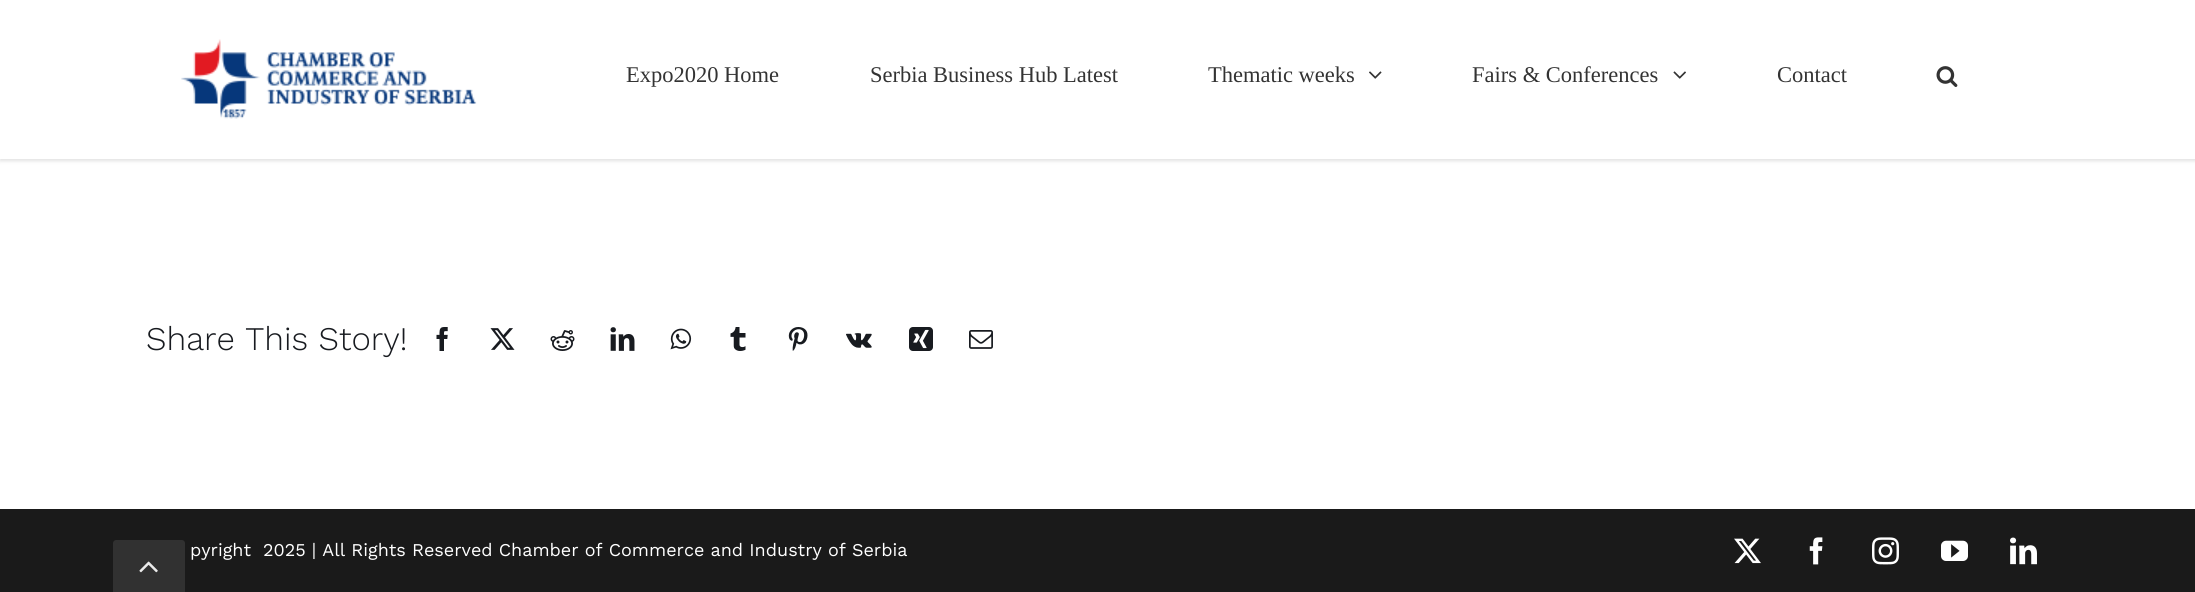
#include <cairo.h>
#include <math.h>
#include <stddef.h>

static cairo_t *ctx;

static void use_color(int r, int g, int b) {
    cairo_set_source_rgb(ctx, r / 255.0, g / 255.0, b / 255.0);
}

static void round_rect(double x, double y, double w, double h, double r) {
    cairo_new_sub_path(ctx);
    cairo_arc(ctx, x + w - r, y + h - r, r, 0, M_PI / 2);
    cairo_arc(ctx, x + r, y + h - r, r, M_PI / 2, M_PI);
    cairo_arc(ctx, x + r, y + r, r, M_PI, 1.5 * M_PI);
    cairo_arc(ctx, x + w - r, y + r, r, 1.5 * M_PI, 2 * M_PI);
    cairo_close_path(ctx);
}

static void shadow(double x, double y, double w, double h, double r, double blur, double alpha) {
    cairo_push_group_with_content(ctx, CAIRO_CONTENT_ALPHA);
    cairo_set_operator(ctx, CAIRO_OPERATOR_SOURCE);
    for (int i = 15; i >= -15 && fmin(w, h) + blur * i / 3 > 0; i -= 2) {
        double e = blur * i / 6;
        cairo_set_source_rgba(ctx, 0, 0, 0, alpha * erfc((i - 1) / 8.5) / 2);
        round_rect(x - e, y - e, w + 2 * e, h + 2 * e, fmax(0, fmin(r + e + blur * .6, fmin(w, h) / 2 + e)));
        cairo_fill(ctx);
    }
    cairo_pattern_t *soft = cairo_pop_group(ctx);
    cairo_mask(ctx, soft);
    cairo_pattern_destroy(soft);
}

static void picture(const char *path, double x, double y, double w, double h) {
    cairo_surface_t *image = cairo_image_surface_create_from_png(path);
    cairo_save(ctx);
    cairo_set_source_surface(ctx, image, x, y);
    cairo_rectangle(ctx, x, y, w, h);
    cairo_fill(ctx);
    cairo_restore(ctx);
    cairo_surface_destroy(image);
}

int main(void) {
    cairo_surface_t *surface = cairo_image_surface_create(CAIRO_FORMAT_RGB24, 2195, 592);
    ctx = cairo_create(surface);
    cairo_font_options_t *options = cairo_font_options_create();
    cairo_font_options_set_hint_metrics(options, CAIRO_HINT_METRICS_OFF);
    cairo_font_options_set_hint_style(options, CAIRO_HINT_STYLE_NONE);
    cairo_set_font_options(ctx, options);
    cairo_set_miter_limit(ctx, 4);
    use_color(255, 255, 255);
    cairo_paint(ctx);
    use_color(0, 0, 0);
    shadow(0, 2, 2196, 159, 0, 2, 0.12);
    use_color(255, 255, 255);
    cairo_rectangle(ctx, 0, 0, 2195, 159);
    cairo_fill(ctx);
    picture("img1.png", 181, 39, 296, 80);
    cairo_select_font_face(ctx, "Liberation Serif", CAIRO_FONT_SLANT_NORMAL, CAIRO_FONT_WEIGHT_NORMAL);
    cairo_set_font_size(ctx, 22.5);
    use_color(51, 51, 51);
    cairo_move_to(ctx, 626, 82);
    cairo_show_text(ctx, "Expo2020 Home");
    cairo_move_to(ctx, 870, 82);
    cairo_show_text(ctx, "Serbia Business Hub Latest");
    cairo_move_to(ctx, 1208, 82);
    cairo_show_text(ctx, "Thematic weeks");
    picture("img2.png", 1369, 71, 13, 8);
    cairo_move_to(ctx, 1472, 82);
    cairo_show_text(ctx, "Fairs & Conferences");
    picture("img3.png", 1673, 71, 13, 8);
    cairo_move_to(ctx, 1777, 82);
    cairo_show_text(ctx, "Contact");
    picture("img4.png", 1936, 66, 22, 21);
    cairo_select_font_face(ctx, "Work Sans Light", CAIRO_FONT_SLANT_NORMAL, CAIRO_FONT_WEIGHT_NORMAL);
    cairo_set_font_size(ctx, 33);
    use_color(24, 27, 32);
    cairo_move_to(ctx, 146, 350);
    cairo_show_text(ctx, "Share This Story!");
    picture("img5.png", 436, 327, 12, 24);
    picture("img6.png", 490, 328, 25, 22);
    picture("img7.png", 550, 330, 25, 21);
    picture("img8.png", 610, 327, 25, 24);
    picture("img9.png", 670, 328, 22, 22);
    picture("img10.png", 730, 327, 16, 24);
    picture("img11.png", 788, 327, 20, 24);
    picture("img12.png", 846, 333, 26, 15);
    picture("img13.png", 909, 327, 24, 24);
    picture("img14.png", 969, 330, 24, 19);
    use_color(26, 26, 26);
    cairo_rectangle(ctx, 0, 509, 2195, 83);
    cairo_fill(ctx);
    cairo_select_font_face(ctx, "Work Sans", CAIRO_FONT_SLANT_NORMAL, CAIRO_FONT_WEIGHT_NORMAL);
    cairo_set_font_size(ctx, 18);
    use_color(255, 255, 255);
    cairo_move_to(ctx, 190, 556);
    cairo_show_text(ctx, "pyright");
    cairo_move_to(ctx, 263, 556);
    cairo_show_text(ctx, "2025 | All Rights Reserved Chamber of Commerce and Industry of Serbia");
    picture("img15.png", 1734, 538, 27, 26);
    picture("img16.png", 1809, 537, 14, 28);
    picture("img17.png", 1872, 537, 27, 28);
    picture("img18.png", 1941, 540, 27, 21);
    picture("img19.png", 2010, 537, 27, 28);
    cairo_set_source_rgba(ctx, 0.2, 0.2, 0.2, 0.9);
    cairo_new_path(ctx);
    cairo_move_to(ctx, 116, 540);
    cairo_line_to(ctx, 182, 540);
    cairo_curve_to(ctx, 183.5, 540, 185, 541.5, 185, 543);
    cairo_line_to(ctx, 185, 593);
    cairo_line_to(ctx, 113, 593);
    cairo_line_to(ctx, 113, 543);
    cairo_curve_to(ctx, 113, 541.5, 114.5, 540, 116, 540);
    cairo_close_path(ctx);
    cairo_fill(ctx);
    picture("img20.png", 139, 561, 19, 12);
    cairo_surface_write_to_png(surface, "result.png");
    cairo_font_options_destroy(options);
    cairo_destroy(ctx);
    cairo_surface_destroy(surface);
    return 0;
}
